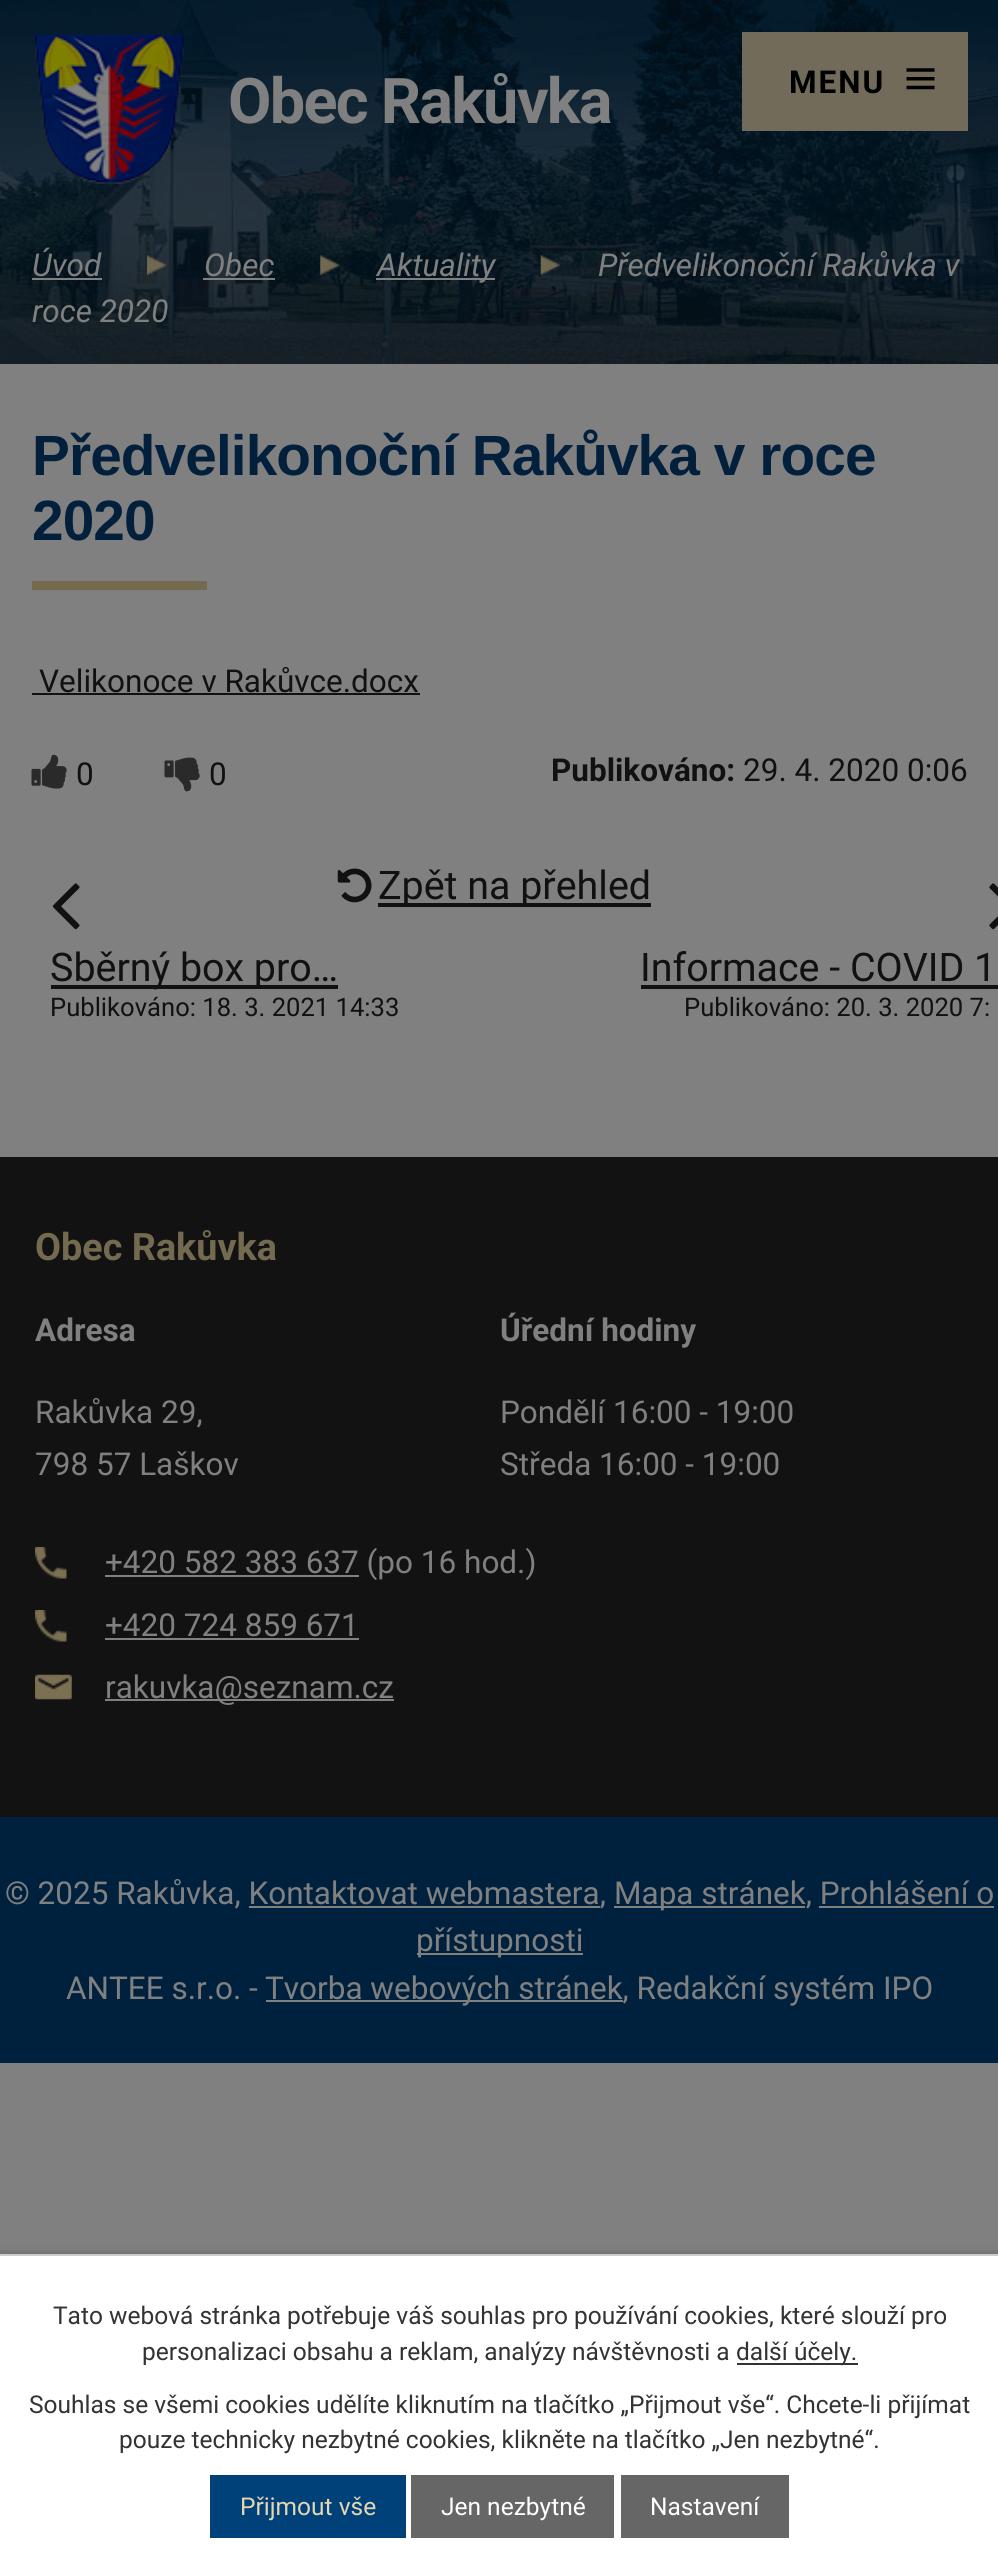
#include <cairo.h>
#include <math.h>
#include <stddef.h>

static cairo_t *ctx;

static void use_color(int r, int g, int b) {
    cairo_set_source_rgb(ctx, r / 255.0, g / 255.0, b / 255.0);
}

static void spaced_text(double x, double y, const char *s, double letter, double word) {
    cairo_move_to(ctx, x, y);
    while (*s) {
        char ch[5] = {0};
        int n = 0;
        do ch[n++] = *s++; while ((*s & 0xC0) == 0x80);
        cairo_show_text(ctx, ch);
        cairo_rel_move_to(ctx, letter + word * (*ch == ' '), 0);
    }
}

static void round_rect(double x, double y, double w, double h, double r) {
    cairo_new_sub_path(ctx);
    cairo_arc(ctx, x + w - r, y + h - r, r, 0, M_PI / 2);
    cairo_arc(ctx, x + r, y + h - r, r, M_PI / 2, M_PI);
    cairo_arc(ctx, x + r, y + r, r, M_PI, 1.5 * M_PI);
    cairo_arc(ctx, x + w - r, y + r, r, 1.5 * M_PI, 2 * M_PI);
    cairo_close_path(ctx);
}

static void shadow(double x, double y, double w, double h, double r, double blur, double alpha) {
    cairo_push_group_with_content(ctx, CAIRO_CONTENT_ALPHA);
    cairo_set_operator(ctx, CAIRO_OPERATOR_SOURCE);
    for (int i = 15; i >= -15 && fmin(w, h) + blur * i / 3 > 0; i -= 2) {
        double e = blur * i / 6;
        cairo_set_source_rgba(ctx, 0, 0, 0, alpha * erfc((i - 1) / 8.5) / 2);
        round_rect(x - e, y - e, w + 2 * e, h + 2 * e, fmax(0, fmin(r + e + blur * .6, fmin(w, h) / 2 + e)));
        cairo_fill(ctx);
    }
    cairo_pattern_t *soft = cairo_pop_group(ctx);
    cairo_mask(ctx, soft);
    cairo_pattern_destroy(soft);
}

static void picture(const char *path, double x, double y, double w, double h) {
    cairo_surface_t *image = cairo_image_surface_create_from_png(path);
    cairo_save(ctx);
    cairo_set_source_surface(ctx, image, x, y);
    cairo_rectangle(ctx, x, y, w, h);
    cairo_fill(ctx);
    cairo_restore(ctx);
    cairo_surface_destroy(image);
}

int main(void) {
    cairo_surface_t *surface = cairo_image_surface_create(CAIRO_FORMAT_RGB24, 998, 2561);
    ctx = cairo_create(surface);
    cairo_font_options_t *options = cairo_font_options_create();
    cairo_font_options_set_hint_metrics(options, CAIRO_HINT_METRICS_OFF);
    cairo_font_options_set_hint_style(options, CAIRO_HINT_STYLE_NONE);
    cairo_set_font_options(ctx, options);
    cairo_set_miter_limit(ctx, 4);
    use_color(128, 128, 128);
    cairo_paint(ctx);
    picture("img1.png", 0, 0, 998, 364);
    picture("img2.png", 35, 35, 149, 149);
    cairo_select_font_face(ctx, "Roboto", CAIRO_FONT_SLANT_NORMAL, CAIRO_FONT_WEIGHT_BOLD);
    cairo_set_font_size(ctx, 63);
    use_color(128, 128, 128);
    spaced_text(228, 123, "Obec Rakůvka", -1.75, 0);
    use_color(114, 107, 89);
    cairo_rectangle(ctx, 742, 32, 226, 99);
    cairo_fill(ctx);
    cairo_set_font_size(ctx, 31.5);
    use_color(0, 0, 0);
    spaced_text(789, 93, "MENU", 2, 0);
    picture("img3.png", 906, 68, 29, 22);
    cairo_select_font_face(ctx, "Roboto", CAIRO_FONT_SLANT_ITALIC, CAIRO_FONT_WEIGHT_NORMAL);
    use_color(128, 128, 128);
    cairo_move_to(ctx, 32, 276);
    cairo_show_text(ctx, "Úvod");
    cairo_rectangle(ctx, 32, 278, 70, 2);
    cairo_fill(ctx);
    picture("img4.png", 147, 255, 20, 20);
    cairo_move_to(ctx, 204, 276);
    cairo_show_text(ctx, "Obec");
    cairo_rectangle(ctx, 203, 278, 72, 2);
    cairo_fill(ctx);
    picture("img5.png", 320, 255, 20, 20);
    cairo_rectangle(ctx, 376, 278, 119, 2);
    cairo_fill(ctx);
    cairo_move_to(ctx, 377, 276);
    cairo_show_text(ctx, "Aktuality");
    picture("img6.png", 540, 255, 20, 20);
    cairo_move_to(ctx, 598, 276);
    cairo_show_text(ctx, "Předvelikonoční Rakůvka v");
    cairo_move_to(ctx, 32, 322);
    cairo_show_text(ctx, "roce 2020");
    cairo_select_font_face(ctx, "Liberation Sans", CAIRO_FONT_SLANT_NORMAL, CAIRO_FONT_WEIGHT_BOLD);
    cairo_set_font_size(ctx, 56.75);
    use_color(2, 32, 60);
    spaced_text(32, 475, "Předvelikonoční Rakůvka v roce", -0.9, 0);
    spaced_text(32, 540, "2020", -0.9, 0);
    use_color(115, 106, 80);
    cairo_rectangle(ctx, 32, 581, 175, 9);
    cairo_fill(ctx);
    cairo_select_font_face(ctx, "Roboto", CAIRO_FONT_SLANT_NORMAL, CAIRO_FONT_WEIGHT_NORMAL);
    cairo_set_font_size(ctx, 31.5);
    use_color(17, 17, 17);
    cairo_move_to(ctx, 39, 692);
    cairo_show_text(ctx, "Velikonoce v Rakůvce.docx");
    cairo_rectangle(ctx, 32, 693, 388, 2);
    cairo_fill(ctx);
    picture("img7.png", 31, 754, 36, 35);
    cairo_move_to(ctx, 76, 785);
    cairo_show_text(ctx, "0");
    picture("img8.png", 164, 757, 36, 35);
    cairo_move_to(ctx, 209, 785);
    cairo_show_text(ctx, "0");
    cairo_select_font_face(ctx, "Roboto", CAIRO_FONT_SLANT_NORMAL, CAIRO_FONT_WEIGHT_BOLD);
    cairo_move_to(ctx, 551, 781);
    cairo_show_text(ctx, "Publikováno:");
    cairo_select_font_face(ctx, "Roboto", CAIRO_FONT_SLANT_NORMAL, CAIRO_FONT_WEIGHT_NORMAL);
    cairo_move_to(ctx, 743, 781);
    cairo_show_text(ctx, "29. 4. 2020 0:06");
    picture("img9.png", 337, 868, 35, 35);
    cairo_rectangle(ctx, 378, 903, 273, 4);
    cairo_fill(ctx);
    cairo_set_font_size(ctx, 39.4);
    cairo_move_to(ctx, 378, 899);
    cairo_show_text(ctx, "Zpět na přehled");
    picture("img10.png", 52, 883, 28, 47);
    cairo_rectangle(ctx, 51, 985, 287, 4);
    cairo_fill(ctx);
    cairo_move_to(ctx, 50, 981);
    cairo_show_text(ctx, "Sběrný box pro…");
    cairo_set_font_size(ctx, 25.6);
    cairo_move_to(ctx, 50, 1016);
    cairo_show_text(ctx, "Publikováno: 18. 3. 2021 14:33");
    picture("img11.png", 989, 883, 9, 47);
    cairo_set_font_size(ctx, 39.4);
    cairo_move_to(ctx, 640, 981);
    cairo_show_text(ctx, "Informace - COVID 1");
    cairo_rectangle(ctx, 641, 985, 357, 4);
    cairo_fill(ctx);
    cairo_set_font_size(ctx, 25.6);
    cairo_move_to(ctx, 684, 1016);
    cairo_show_text(ctx, "Publikováno: 20. 3. 2020 7:");
    use_color(18, 18, 18);
    cairo_rectangle(ctx, 0, 1157, 998, 660);
    cairo_fill(ctx);
    cairo_select_font_face(ctx, "Roboto", CAIRO_FONT_SLANT_NORMAL, CAIRO_FONT_WEIGHT_BOLD);
    cairo_set_font_size(ctx, 37.75);
    use_color(115, 106, 80);
    cairo_move_to(ctx, 35, 1260);
    cairo_show_text(ctx, "Obec Rakůvka");
    cairo_set_font_size(ctx, 31.5);
    use_color(128, 128, 128);
    cairo_move_to(ctx, 35, 1341);
    cairo_show_text(ctx, "Adresa");
    cairo_select_font_face(ctx, "Roboto", CAIRO_FONT_SLANT_NORMAL, CAIRO_FONT_WEIGHT_NORMAL);
    cairo_move_to(ctx, 35, 1423);
    cairo_show_text(ctx, "Rakůvka 29,");
    cairo_move_to(ctx, 35, 1475);
    cairo_show_text(ctx, "798 57 Laškov");
    cairo_select_font_face(ctx, "Roboto", CAIRO_FONT_SLANT_NORMAL, CAIRO_FONT_WEIGHT_BOLD);
    cairo_move_to(ctx, 500, 1341);
    cairo_show_text(ctx, "Úřední hodiny");
    cairo_select_font_face(ctx, "Roboto", CAIRO_FONT_SLANT_NORMAL, CAIRO_FONT_WEIGHT_NORMAL);
    cairo_move_to(ctx, 500, 1423);
    cairo_show_text(ctx, "Pondělí 16:00 - 19:00");
    cairo_move_to(ctx, 500, 1475);
    cairo_show_text(ctx, "Středa 16:00 - 19:00");
    picture("img12.png", 35, 1547, 32, 32);
    cairo_rectangle(ctx, 105, 1575, 254, 2);
    cairo_fill(ctx);
    cairo_move_to(ctx, 105, 1573);
    cairo_show_text(ctx, "+420 582 383 637 (po 16 hod.)");
    picture("img12.png", 35, 1610, 32, 32);
    cairo_move_to(ctx, 105, 1636);
    cairo_show_text(ctx, "+420 724 859 671");
    cairo_rectangle(ctx, 105, 1638, 254, 2);
    cairo_fill(ctx);
    picture("img13.png", 35, 1674, 37, 26);
    cairo_rectangle(ctx, 105, 1699, 289, 2);
    cairo_fill(ctx);
    cairo_move_to(ctx, 105, 1698);
    cairo_show_text(ctx, "rakuvka@seznam.cz");
    use_color(0, 33, 61);
    cairo_rectangle(ctx, 0, 1817, 998, 246);
    cairo_fill(ctx);
    use_color(128, 128, 128);
    cairo_move_to(ctx, 5, 1904);
    cairo_show_text(ctx, "© 2025 Rakůvka, Kontaktovat webmastera,");
    cairo_rectangle(ctx, 614, 1906, 191, 2);
    cairo_fill(ctx);
    cairo_move_to(ctx, 614, 1904);
    cairo_show_text(ctx, "Mapa stránek, Prohlášení o");
    cairo_rectangle(ctx, 819, 1906, 175, 2);
    cairo_fill(ctx);
    cairo_rectangle(ctx, 249, 1906, 351, 2);
    cairo_fill(ctx);
    cairo_rectangle(ctx, 417, 1953, 166, 2);
    cairo_fill(ctx);
    cairo_move_to(ctx, 416, 1951);
    cairo_show_text(ctx, "přístupnosti");
    cairo_move_to(ctx, 66, 1999);
    cairo_show_text(ctx, "ANTEE s.r.o. -");
    cairo_rectangle(ctx, 266, 2000, 357, 2);
    cairo_fill(ctx);
    cairo_move_to(ctx, 265, 1999);
    cairo_show_text(ctx, "Tvorba webových stránek, Redakční systém IPO");
    use_color(0, 0, 0);
    shadow(0, 2254, 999, 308, 0, 4.5, 0.2);
    use_color(255, 255, 255);
    cairo_rectangle(ctx, 0, 2256, 998, 305);
    cairo_fill(ctx);
    use_color(204, 204, 204);
    cairo_rectangle(ctx, 0, 2254, 998, 2);
    cairo_fill(ctx);
    cairo_set_font_size(ctx, 24.5);
    use_color(51, 51, 51);
    cairo_move_to(ctx, 53, 2324);
    cairo_show_text(ctx, "Tato webová stránka potřebuje váš souhlas pro používání cookies, které slouží pro");
    cairo_move_to(ctx, 142, 2360);
    cairo_show_text(ctx, "personalizaci obsahu a reklam, analýzy návštěvnosti a");
    cairo_rectangle(ctx, 737, 2363, 121, 2);
    cairo_fill(ctx);
    cairo_move_to(ctx, 736, 2360);
    cairo_show_text(ctx, "další účely.");
    cairo_move_to(ctx, 29, 2413);
    cairo_show_text(ctx, "Souhlas se všemi cookies udělíte kliknutím na tlačítko „Přijmout vše“. Chcete-li přijímat");
    cairo_move_to(ctx, 119, 2448);
    cairo_show_text(ctx, "pouze technicky nezbytné cookies, klikněte na tlačítko „Jen nezbytné“.");
    use_color(0, 65, 121);
    cairo_rectangle(ctx, 210, 2475, 196, 63);
    cairo_fill(ctx);
    use_color(228, 214, 177);
    cairo_move_to(ctx, 240, 2515);
    cairo_show_text(ctx, "Přijmout vše");
    use_color(102, 102, 102);
    cairo_rectangle(ctx, 411, 2475, 203, 63);
    cairo_fill(ctx);
    use_color(255, 255, 255);
    cairo_move_to(ctx, 441, 2515);
    cairo_show_text(ctx, "Jen nezbytné");
    use_color(102, 102, 102);
    cairo_rectangle(ctx, 621, 2475, 168, 63);
    cairo_fill(ctx);
    use_color(255, 255, 255);
    cairo_move_to(ctx, 650, 2515);
    cairo_show_text(ctx, "Nastavení");
    cairo_surface_write_to_png(surface, "result.png");
    cairo_font_options_destroy(options);
    cairo_destroy(ctx);
    cairo_surface_destroy(surface);
    return 0;
}
